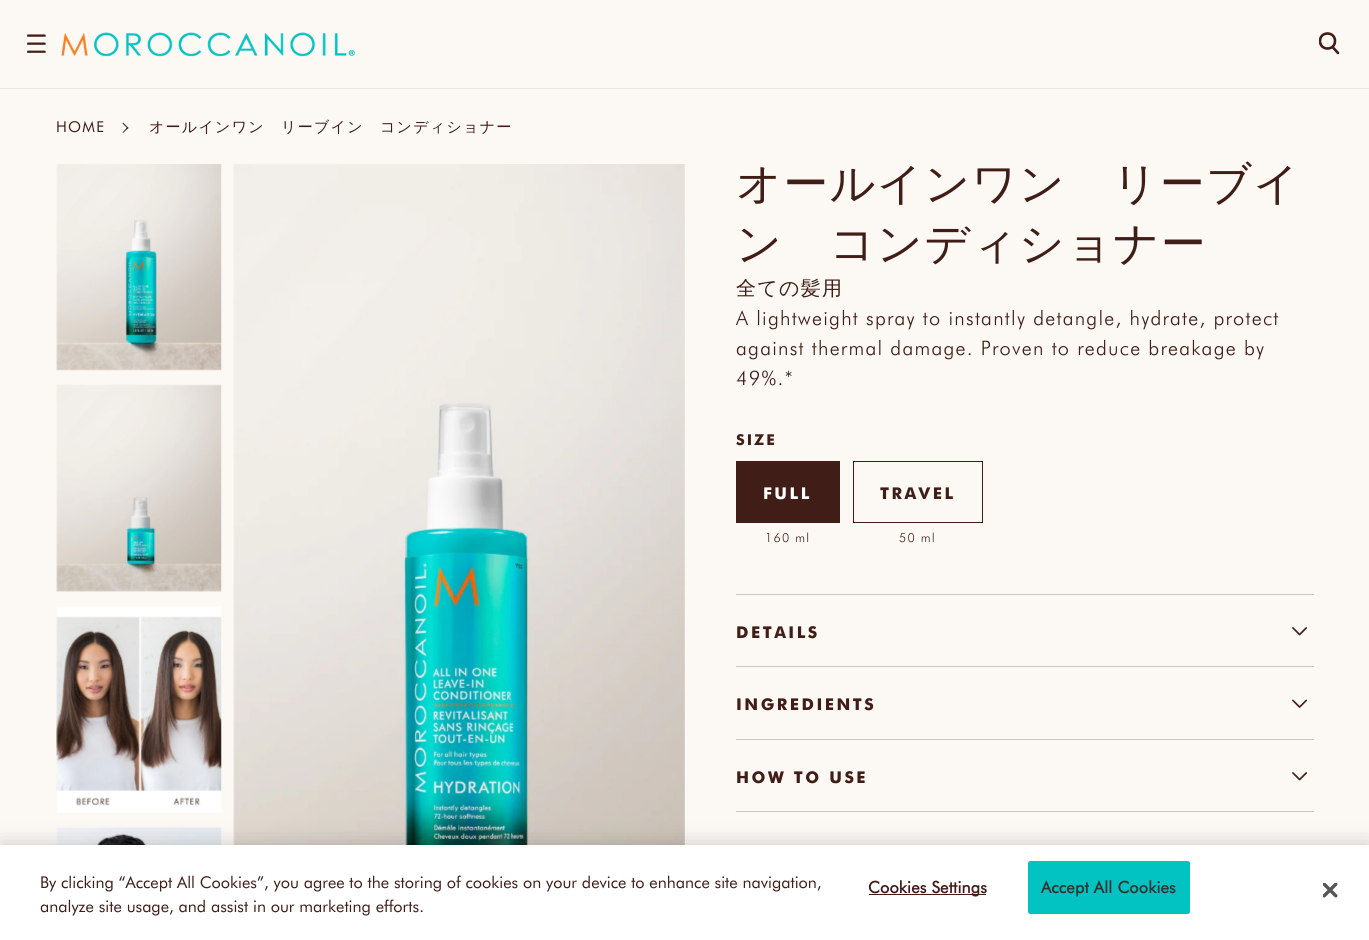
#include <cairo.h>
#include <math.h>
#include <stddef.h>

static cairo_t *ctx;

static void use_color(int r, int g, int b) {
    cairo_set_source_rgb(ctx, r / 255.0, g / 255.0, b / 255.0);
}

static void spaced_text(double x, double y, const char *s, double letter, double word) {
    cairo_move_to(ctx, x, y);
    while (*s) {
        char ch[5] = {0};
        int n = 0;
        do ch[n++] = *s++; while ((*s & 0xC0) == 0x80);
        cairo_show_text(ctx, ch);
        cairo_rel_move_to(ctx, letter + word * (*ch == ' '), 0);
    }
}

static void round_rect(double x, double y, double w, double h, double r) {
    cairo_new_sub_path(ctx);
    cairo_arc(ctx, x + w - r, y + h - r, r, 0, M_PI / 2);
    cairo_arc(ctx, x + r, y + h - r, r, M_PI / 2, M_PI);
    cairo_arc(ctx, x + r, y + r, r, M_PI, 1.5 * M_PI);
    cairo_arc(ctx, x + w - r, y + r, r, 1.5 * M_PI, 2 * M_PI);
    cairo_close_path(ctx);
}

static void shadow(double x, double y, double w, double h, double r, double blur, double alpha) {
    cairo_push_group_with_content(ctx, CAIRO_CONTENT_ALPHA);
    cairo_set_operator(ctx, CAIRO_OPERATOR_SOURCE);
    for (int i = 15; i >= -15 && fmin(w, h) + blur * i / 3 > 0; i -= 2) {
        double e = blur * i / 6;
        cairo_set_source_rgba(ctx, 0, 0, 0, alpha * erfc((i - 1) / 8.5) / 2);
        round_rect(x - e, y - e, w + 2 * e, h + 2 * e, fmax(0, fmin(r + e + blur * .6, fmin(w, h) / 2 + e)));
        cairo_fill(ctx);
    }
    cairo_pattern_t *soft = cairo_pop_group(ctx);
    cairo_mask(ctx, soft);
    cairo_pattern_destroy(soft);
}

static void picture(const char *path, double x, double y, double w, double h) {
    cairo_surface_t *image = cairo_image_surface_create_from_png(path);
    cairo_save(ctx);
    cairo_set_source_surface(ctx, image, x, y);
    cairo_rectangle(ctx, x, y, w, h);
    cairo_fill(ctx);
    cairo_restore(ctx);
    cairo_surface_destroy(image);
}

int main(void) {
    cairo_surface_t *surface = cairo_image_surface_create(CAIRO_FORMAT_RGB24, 1369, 940);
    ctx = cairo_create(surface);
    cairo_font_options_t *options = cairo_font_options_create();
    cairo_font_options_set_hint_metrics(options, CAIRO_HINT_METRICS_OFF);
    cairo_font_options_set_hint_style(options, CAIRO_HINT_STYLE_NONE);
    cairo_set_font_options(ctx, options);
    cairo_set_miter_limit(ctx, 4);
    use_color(252, 248, 244);
    cairo_paint(ctx);
    use_color(236, 229, 227);
    cairo_rectangle(ctx, 0, 88, 1369, 1);
    cairo_fill(ctx);
    picture("img1.png", 27, 34, 19, 19);
    picture("img2.png", 61, 32, 294, 25);
    cairo_new_path(ctx);
    cairo_move_to(ctx, 1333, 47.5);
    cairo_line_to(ctx, 1338, 53);
    use_color(64, 30, 23);
    cairo_set_line_width(ctx, 2.6);
    cairo_set_line_cap(ctx, CAIRO_LINE_CAP_ROUND);
    cairo_stroke(ctx);
    cairo_save(ctx);
    cairo_rectangle(ctx, 1319, 24, 21, 40);
    cairo_clip(ctx);
    cairo_new_path(ctx);
    cairo_move_to(ctx, 1335, 41);
    cairo_curve_to(ctx, 1335, 51, 1320, 51, 1320, 41);
    cairo_curve_to(ctx, 1320, 31, 1335, 31, 1335, 41);
    cairo_close_path(ctx);
    cairo_stroke(ctx);
    cairo_restore(ctx);
    cairo_select_font_face(ctx, "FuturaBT", CAIRO_FONT_SLANT_NORMAL, CAIRO_FONT_WEIGHT_NORMAL);
    cairo_set_font_size(ctx, 15);
    spaced_text(56, 132, "HOME", 1.25, 0);
    cairo_new_path(ctx);
    cairo_move_to(ctx, 123, 122.5);
    cairo_line_to(ctx, 128.5, 128);
    cairo_line_to(ctx, 127.5, 128.5);
    cairo_line_to(ctx, 122.5, 123.5);
    cairo_close_path(ctx);
    cairo_fill(ctx);
    cairo_new_path(ctx);
    cairo_move_to(ctx, 127.5, 127);
    cairo_line_to(ctx, 128.5, 128);
    cairo_line_to(ctx, 123, 133);
    cairo_line_to(ctx, 122.5, 132.5);
    cairo_close_path(ctx);
    cairo_fill(ctx);
    cairo_select_font_face(ctx, "WenQuanYi Zen Hei Medium", CAIRO_FONT_SLANT_NORMAL, CAIRO_FONT_WEIGHT_NORMAL);
    spaced_text(149, 132, "オールインワン　リーブイン　コンディショナー", 1.25, 0);
    picture("img3.png", 56, 164, 166, 207);
    picture("img4.png", 56, 384, 166, 208);
    picture("img5.png", 56, 606, 166, 207);
    picture("img6.png", 56, 827, 166, 18);
    picture("img7.png", 233, 164, 452, 681);
    cairo_set_font_size(ctx, 45);
    spaced_text(736, 199, "オールインワン　リーブイ", 1.25, 0);
    spaced_text(736, 259, "ン　コンディショナー", 1.25, 0);
    cairo_set_font_size(ctx, 20);
    spaced_text(736, 295, "全ての髪用", 1.25, 0);
    cairo_select_font_face(ctx, "FuturaBT Light", CAIRO_FONT_SLANT_NORMAL, CAIRO_FONT_WEIGHT_NORMAL);
    spaced_text(736, 325, "A lightweight spray to instantly detangle, hydrate, protect", 1.25, 0);
    spaced_text(736, 355, "against thermal damage. Proven to reduce breakage by", 1.25, 0);
    spaced_text(736, 385, "49%.*", 1.25, 0);
    cairo_select_font_face(ctx, "FuturaBT Black", CAIRO_FONT_SLANT_NORMAL, CAIRO_FONT_WEIGHT_NORMAL);
    cairo_set_font_size(ctx, 15);
    spaced_text(736, 445, "SIZE", 2, 0);
    cairo_rectangle(ctx, 736, 461, 104, 62);
    cairo_fill(ctx);
    cairo_set_font_size(ctx, 16.25);
    use_color(255, 255, 255);
    spaced_text(763, 499, "FULL", 2.5, 0);
    cairo_select_font_face(ctx, "FuturaBT Light", CAIRO_FONT_SLANT_NORMAL, CAIRO_FONT_WEIGHT_NORMAL);
    cairo_set_font_size(ctx, 12.5);
    use_color(64, 30, 23);
    spaced_text(765, 542, "160 ml", 1.25, 0);
    cairo_rectangle(ctx, 853.5, 461.5, 129, 61);
    cairo_set_line_width(ctx, 1);
    cairo_set_line_cap(ctx, CAIRO_LINE_CAP_BUTT);
    cairo_stroke(ctx);
    cairo_select_font_face(ctx, "FuturaBT Black", CAIRO_FONT_SLANT_NORMAL, CAIRO_FONT_WEIGHT_NORMAL);
    cairo_set_font_size(ctx, 16.25);
    spaced_text(880, 499, "TRAVEL", 2.5, 0);
    cairo_select_font_face(ctx, "FuturaBT Light", CAIRO_FONT_SLANT_NORMAL, CAIRO_FONT_WEIGHT_NORMAL);
    cairo_set_font_size(ctx, 12.5);
    spaced_text(899, 542, "50 ml", 1.25, 0);
    use_color(205, 194, 189);
    cairo_rectangle(ctx, 736, 594, 578, 1);
    cairo_fill(ctx);
    cairo_rectangle(ctx, 736, 666, 578, 1);
    cairo_fill(ctx);
    cairo_select_font_face(ctx, "FuturaBT Black", CAIRO_FONT_SLANT_NORMAL, CAIRO_FONT_WEIGHT_NORMAL);
    cairo_set_font_size(ctx, 16.25);
    use_color(64, 30, 23);
    spaced_text(736, 638, "DETAILS", 2.5, 0);
    picture("img8.png", 1292, 627, 15, 9);
    use_color(205, 194, 189);
    cairo_rectangle(ctx, 736, 739, 578, 1);
    cairo_fill(ctx);
    use_color(64, 30, 23);
    spaced_text(736, 710, "INGREDIENTS", 2.5, 0);
    picture("img9.png", 1292, 699, 15, 9);
    use_color(205, 194, 189);
    cairo_rectangle(ctx, 736, 811, 578, 1);
    cairo_fill(ctx);
    use_color(64, 30, 23);
    spaced_text(736, 783, "HOW TO USE", 2.5, 0);
    picture("img8.png", 1292, 772, 15, 9);
    use_color(0, 0, 0);
    shadow(0, 845, 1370, 95, 0, 11, 0.2);
    use_color(255, 255, 255);
    cairo_rectangle(ctx, 0, 845, 1369, 95);
    cairo_fill(ctx);
    cairo_select_font_face(ctx, "FuturaBT", CAIRO_FONT_SLANT_NORMAL, CAIRO_FONT_WEIGHT_NORMAL);
    use_color(64, 30, 23);
    cairo_move_to(ctx, 40, 888);
    cairo_show_text(ctx, "By clicking “Accept All Cookies”, you agree to the storing of cookies on your device to enhance site navigation,");
    cairo_move_to(ctx, 40, 912);
    cairo_show_text(ctx, "analyze site usage, and assist in our marketing efforts.");
    cairo_rectangle(ctx, 869, 894, 117, 1);
    cairo_fill(ctx);
    cairo_select_font_face(ctx, "FuturaBT", CAIRO_FONT_SLANT_NORMAL, CAIRO_FONT_WEIGHT_BOLD);
    spaced_text(868, 893, "Cookies Settings", 0.2, 0);
    use_color(2, 195, 194);
    round_rect(1028.5, 861.5, 161, 52, 2);
    cairo_fill_preserve(ctx);
    cairo_stroke(ctx);
    use_color(51, 51, 51);
    spaced_text(1041, 893, "Accept All Cookies", 0.2, 0);
    picture("img10.png", 1323, 883, 15, 15);
    cairo_surface_write_to_png(surface, "result.png");
    cairo_font_options_destroy(options);
    cairo_destroy(ctx);
    cairo_surface_destroy(surface);
    return 0;
}
